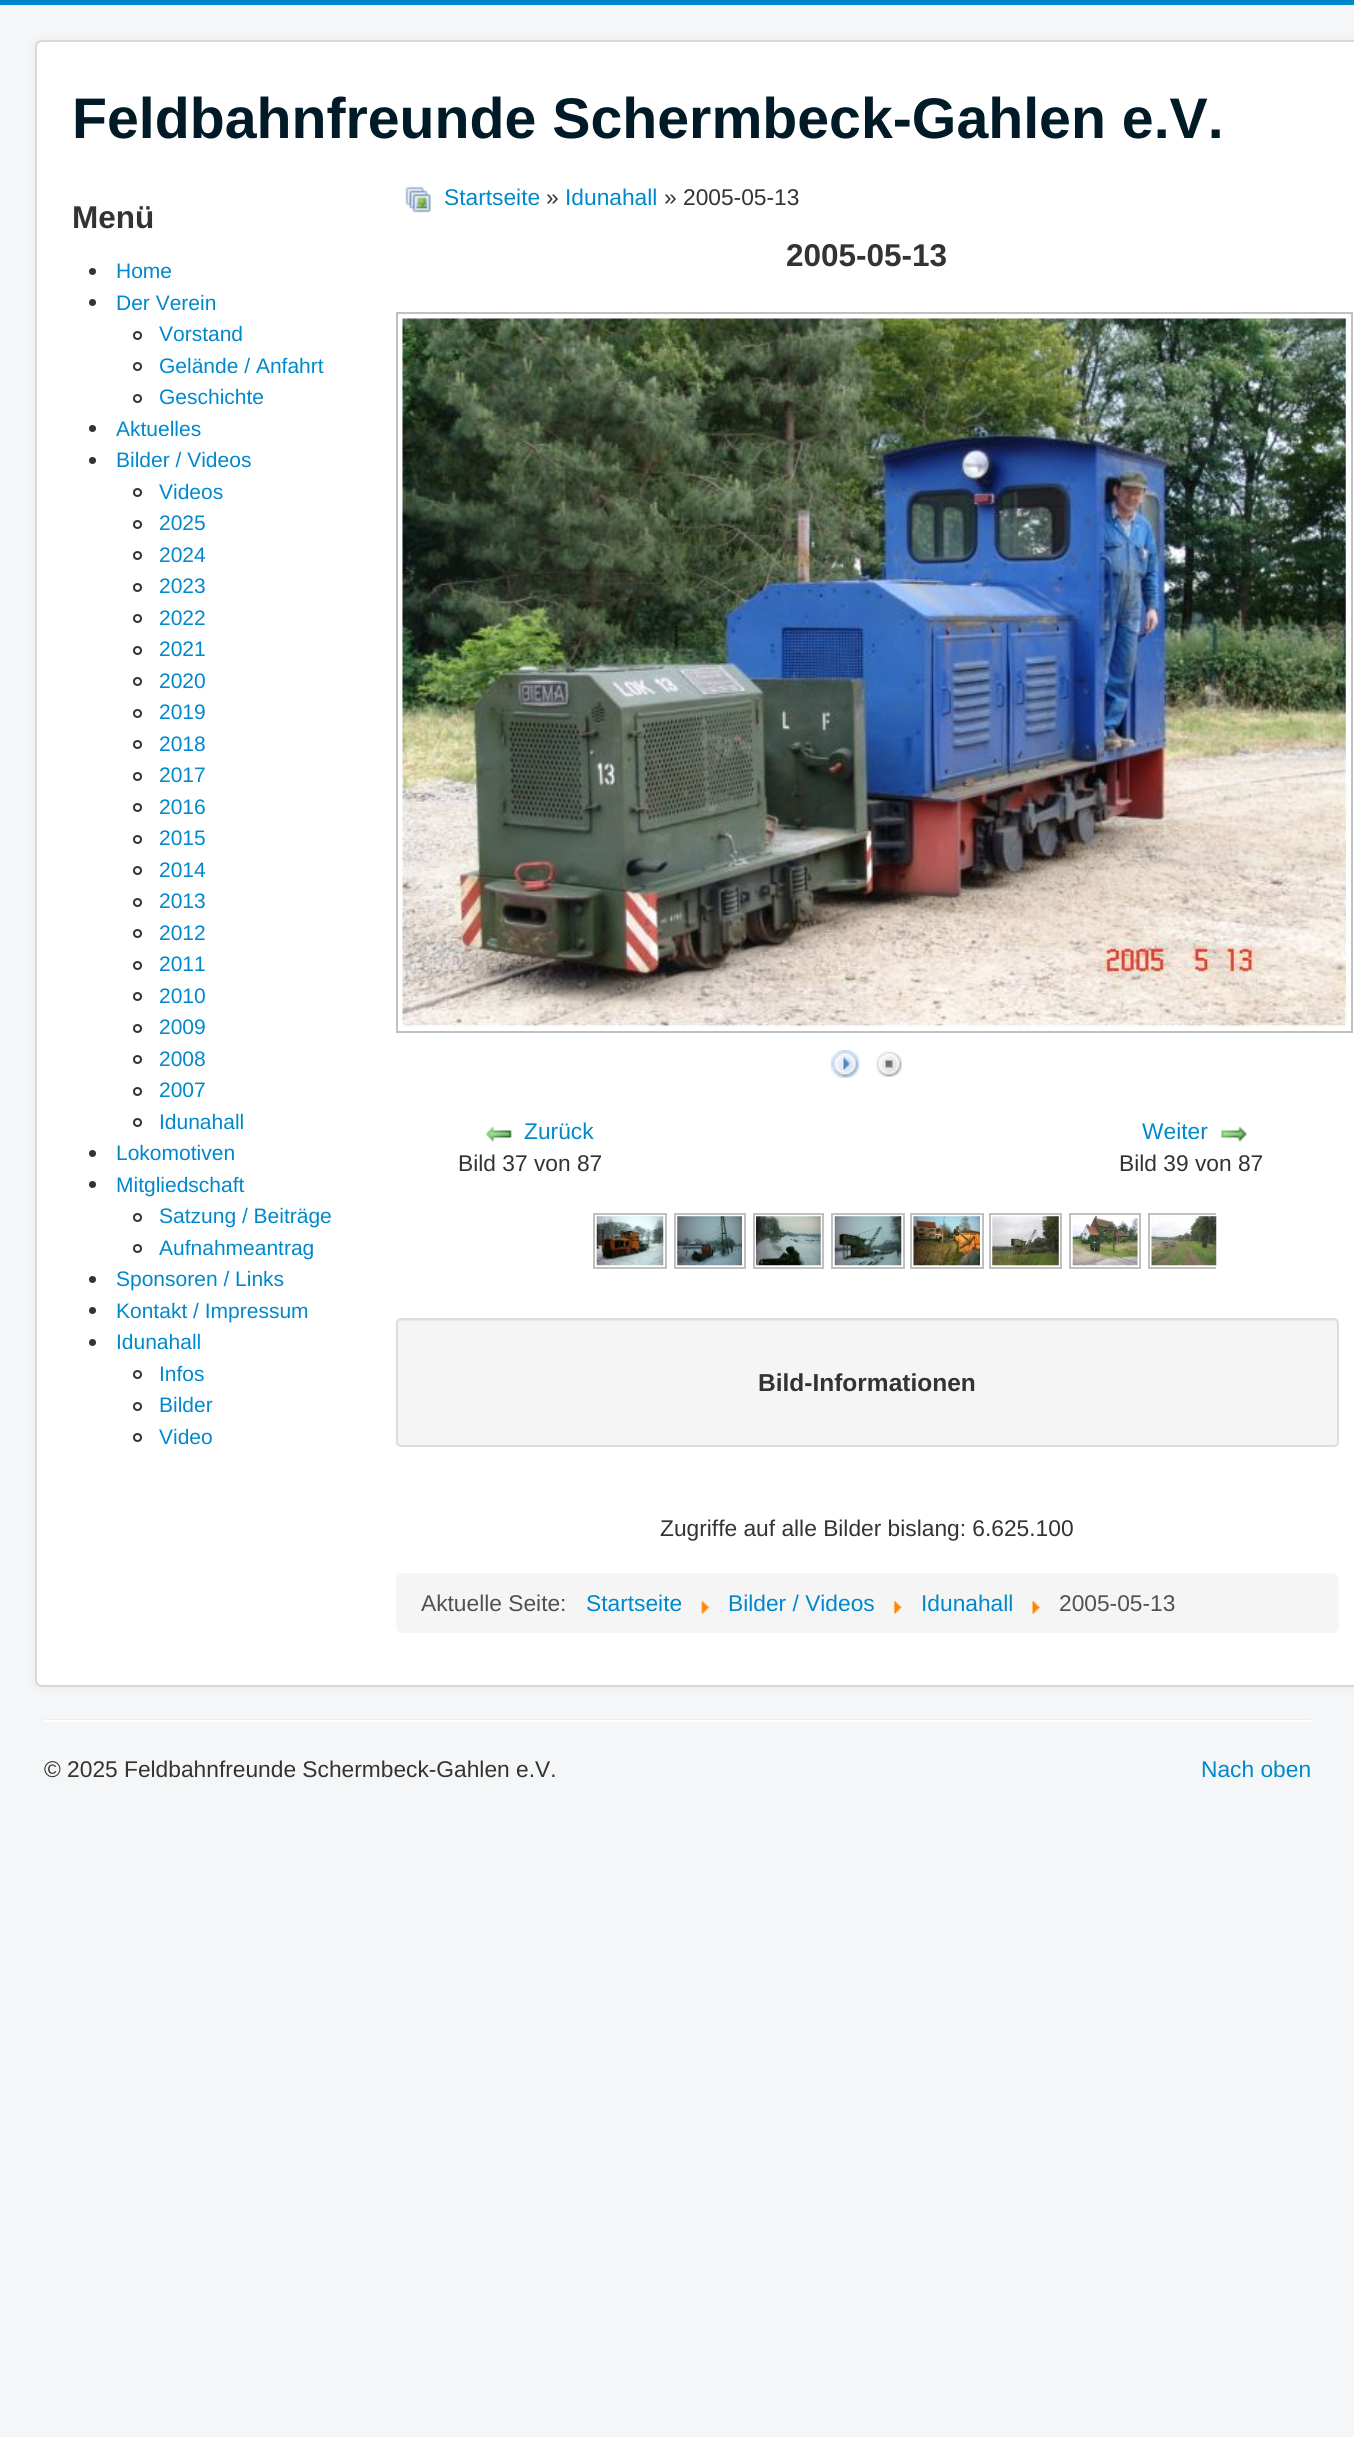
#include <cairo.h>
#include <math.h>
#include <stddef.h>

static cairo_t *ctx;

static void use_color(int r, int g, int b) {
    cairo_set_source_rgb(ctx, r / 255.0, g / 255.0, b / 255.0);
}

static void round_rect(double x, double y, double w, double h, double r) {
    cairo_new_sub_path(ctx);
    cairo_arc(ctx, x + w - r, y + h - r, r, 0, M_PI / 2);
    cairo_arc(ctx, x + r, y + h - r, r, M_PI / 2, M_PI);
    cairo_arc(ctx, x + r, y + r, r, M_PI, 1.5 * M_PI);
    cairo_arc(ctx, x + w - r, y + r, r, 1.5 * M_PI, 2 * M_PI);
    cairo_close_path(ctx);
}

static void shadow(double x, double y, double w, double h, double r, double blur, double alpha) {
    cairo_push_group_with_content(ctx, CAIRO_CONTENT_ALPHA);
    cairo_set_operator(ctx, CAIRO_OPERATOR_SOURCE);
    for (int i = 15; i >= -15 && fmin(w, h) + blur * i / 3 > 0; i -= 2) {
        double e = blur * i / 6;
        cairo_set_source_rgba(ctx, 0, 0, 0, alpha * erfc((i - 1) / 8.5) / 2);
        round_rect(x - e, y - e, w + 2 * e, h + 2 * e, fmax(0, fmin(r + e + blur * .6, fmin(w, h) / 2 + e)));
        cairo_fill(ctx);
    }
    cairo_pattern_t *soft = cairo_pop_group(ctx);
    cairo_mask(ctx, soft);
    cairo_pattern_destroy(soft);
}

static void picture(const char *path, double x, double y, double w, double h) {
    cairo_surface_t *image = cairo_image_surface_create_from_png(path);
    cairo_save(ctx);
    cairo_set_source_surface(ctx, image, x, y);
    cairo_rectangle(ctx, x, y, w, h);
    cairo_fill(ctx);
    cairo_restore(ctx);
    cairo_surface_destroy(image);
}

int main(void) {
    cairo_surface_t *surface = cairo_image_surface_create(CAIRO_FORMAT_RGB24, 1354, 2437);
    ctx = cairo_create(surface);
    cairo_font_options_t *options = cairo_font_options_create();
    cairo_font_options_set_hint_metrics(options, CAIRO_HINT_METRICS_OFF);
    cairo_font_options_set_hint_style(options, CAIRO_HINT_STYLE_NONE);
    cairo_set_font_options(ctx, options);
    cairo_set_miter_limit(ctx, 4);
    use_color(244, 246, 247);
    cairo_paint(ctx);
    use_color(0, 136, 204);
    cairo_rectangle(ctx, 0, 0, 1354, 5);
    cairo_fill(ctx);
    use_color(0, 0, 0);
    shadow(35, 40, 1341, 1647, 7, 5, 0.05);
    use_color(255, 255, 255);
    round_rect(35, 40, 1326, 1647, 7);
    cairo_fill(ctx);
    round_rect(36, 41, 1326, 1645, 6);
    cairo_set_source_rgba(ctx, 0, 0, 0, 0.15);
    cairo_stroke(ctx);
    cairo_select_font_face(ctx, "Liberation Sans", CAIRO_FONT_SLANT_NORMAL, CAIRO_FONT_WEIGHT_BOLD);
    cairo_set_font_size(ctx, 57.25);
    use_color(0, 26, 39);
    cairo_move_to(ctx, 72, 138);
    cairo_show_text(ctx, "Feldbahnfreunde Schermbeck-Gahlen e.V.");
    cairo_set_font_size(ctx, 31.5);
    use_color(51, 51, 51);
    cairo_move_to(ctx, 72, 228);
    cairo_show_text(ctx, "Menü");
    cairo_new_path(ctx);
    cairo_arc(ctx, 92.5, 271.5, 3.5, 0, 2 * M_PI);
    cairo_fill(ctx);
    cairo_select_font_face(ctx, "Liberation Sans", CAIRO_FONT_SLANT_NORMAL, CAIRO_FONT_WEIGHT_NORMAL);
    cairo_set_font_size(ctx, 21);
    use_color(0, 136, 204);
    cairo_move_to(ctx, 116, 278);
    cairo_show_text(ctx, "Home");
    use_color(51, 51, 51);
    cairo_new_path(ctx);
    cairo_arc(ctx, 92.5, 302.5, 3.5, 0, 2 * M_PI);
    cairo_fill(ctx);
    use_color(0, 136, 204);
    cairo_move_to(ctx, 116, 310);
    cairo_show_text(ctx, "Der Verein");
    cairo_new_path(ctx);
    cairo_arc(ctx, 137.5, 335.5, 3.5, 0, 2 * M_PI);
    use_color(51, 51, 51);
    cairo_stroke(ctx);
    use_color(0, 136, 204);
    cairo_move_to(ctx, 159, 341);
    cairo_show_text(ctx, "Vorstand");
    cairo_new_path(ctx);
    cairo_arc(ctx, 137.5, 366.5, 3.5, 0, 2 * M_PI);
    use_color(51, 51, 51);
    cairo_stroke(ctx);
    use_color(0, 136, 204);
    cairo_move_to(ctx, 159, 373);
    cairo_show_text(ctx, "Gelände / Anfahrt");
    cairo_new_path(ctx);
    cairo_arc(ctx, 137.5, 398.5, 3.5, 0, 2 * M_PI);
    use_color(51, 51, 51);
    cairo_stroke(ctx);
    use_color(0, 136, 204);
    cairo_move_to(ctx, 159, 404);
    cairo_show_text(ctx, "Geschichte");
    use_color(51, 51, 51);
    cairo_new_path(ctx);
    cairo_arc(ctx, 92.5, 428.5, 3.5, 0, 2 * M_PI);
    cairo_fill(ctx);
    use_color(0, 136, 204);
    cairo_move_to(ctx, 116, 436);
    cairo_show_text(ctx, "Aktuelles");
    use_color(51, 51, 51);
    cairo_new_path(ctx);
    cairo_arc(ctx, 92.5, 460.5, 3.5, 0, 2 * M_PI);
    cairo_fill(ctx);
    use_color(0, 136, 204);
    cairo_move_to(ctx, 116, 467);
    cairo_show_text(ctx, "Bilder / Videos");
    cairo_new_path(ctx);
    cairo_arc(ctx, 137.5, 492.5, 3.5, 0, 2 * M_PI);
    use_color(51, 51, 51);
    cairo_stroke(ctx);
    use_color(0, 136, 204);
    cairo_move_to(ctx, 159, 499);
    cairo_show_text(ctx, "Videos");
    cairo_new_path(ctx);
    cairo_arc(ctx, 137.5, 524.5, 3.5, 0, 2 * M_PI);
    use_color(51, 51, 51);
    cairo_stroke(ctx);
    use_color(0, 136, 204);
    cairo_move_to(ctx, 159, 530);
    cairo_show_text(ctx, "2025");
    cairo_new_path(ctx);
    cairo_arc(ctx, 137.5, 555.5, 3.5, 0, 2 * M_PI);
    use_color(51, 51, 51);
    cairo_stroke(ctx);
    use_color(0, 136, 204);
    cairo_move_to(ctx, 159, 562);
    cairo_show_text(ctx, "2024");
    cairo_new_path(ctx);
    cairo_arc(ctx, 137.5, 587.5, 3.5, 0, 2 * M_PI);
    use_color(51, 51, 51);
    cairo_stroke(ctx);
    use_color(0, 136, 204);
    cairo_move_to(ctx, 159, 593);
    cairo_show_text(ctx, "2023");
    cairo_new_path(ctx);
    cairo_arc(ctx, 137.5, 618.5, 3.5, 0, 2 * M_PI);
    use_color(51, 51, 51);
    cairo_stroke(ctx);
    use_color(0, 136, 204);
    cairo_move_to(ctx, 159, 625);
    cairo_show_text(ctx, "2022");
    cairo_new_path(ctx);
    cairo_arc(ctx, 137.5, 650.5, 3.5, 0, 2 * M_PI);
    use_color(51, 51, 51);
    cairo_stroke(ctx);
    use_color(0, 136, 204);
    cairo_move_to(ctx, 159, 656);
    cairo_show_text(ctx, "2021");
    cairo_new_path(ctx);
    cairo_arc(ctx, 137.5, 681.5, 3.5, 0, 2 * M_PI);
    use_color(51, 51, 51);
    cairo_stroke(ctx);
    use_color(0, 136, 204);
    cairo_move_to(ctx, 159, 688);
    cairo_show_text(ctx, "2020");
    cairo_new_path(ctx);
    cairo_arc(ctx, 137.5, 713.5, 3.5, 0, 2 * M_PI);
    use_color(51, 51, 51);
    cairo_stroke(ctx);
    use_color(0, 136, 204);
    cairo_move_to(ctx, 159, 719);
    cairo_show_text(ctx, "2019");
    cairo_new_path(ctx);
    cairo_arc(ctx, 137.5, 744.5, 3.5, 0, 2 * M_PI);
    use_color(51, 51, 51);
    cairo_stroke(ctx);
    use_color(0, 136, 204);
    cairo_move_to(ctx, 159, 751);
    cairo_show_text(ctx, "2018");
    cairo_new_path(ctx);
    cairo_arc(ctx, 137.5, 776.5, 3.5, 0, 2 * M_PI);
    use_color(51, 51, 51);
    cairo_stroke(ctx);
    use_color(0, 136, 204);
    cairo_move_to(ctx, 159, 782);
    cairo_show_text(ctx, "2017");
    cairo_new_path(ctx);
    cairo_arc(ctx, 137.5, 807.5, 3.5, 0, 2 * M_PI);
    use_color(51, 51, 51);
    cairo_stroke(ctx);
    use_color(0, 136, 204);
    cairo_move_to(ctx, 159, 814);
    cairo_show_text(ctx, "2016");
    cairo_new_path(ctx);
    cairo_arc(ctx, 137.5, 839.5, 3.5, 0, 2 * M_PI);
    use_color(51, 51, 51);
    cairo_stroke(ctx);
    use_color(0, 136, 204);
    cairo_move_to(ctx, 159, 845);
    cairo_show_text(ctx, "2015");
    cairo_new_path(ctx);
    cairo_arc(ctx, 137.5, 870.5, 3.5, 0, 2 * M_PI);
    use_color(51, 51, 51);
    cairo_stroke(ctx);
    use_color(0, 136, 204);
    cairo_move_to(ctx, 159, 877);
    cairo_show_text(ctx, "2014");
    cairo_new_path(ctx);
    cairo_arc(ctx, 137.5, 902.5, 3.5, 0, 2 * M_PI);
    use_color(51, 51, 51);
    cairo_stroke(ctx);
    use_color(0, 136, 204);
    cairo_move_to(ctx, 159, 908);
    cairo_show_text(ctx, "2013");
    cairo_new_path(ctx);
    cairo_arc(ctx, 137.5, 933.5, 3.5, 0, 2 * M_PI);
    use_color(51, 51, 51);
    cairo_stroke(ctx);
    use_color(0, 136, 204);
    cairo_move_to(ctx, 159, 940);
    cairo_show_text(ctx, "2012");
    cairo_new_path(ctx);
    cairo_arc(ctx, 137.5, 965.5, 3.5, 0, 2 * M_PI);
    use_color(51, 51, 51);
    cairo_stroke(ctx);
    use_color(0, 136, 204);
    cairo_move_to(ctx, 159, 971);
    cairo_show_text(ctx, "2011");
    cairo_new_path(ctx);
    cairo_arc(ctx, 137.5, 996.5, 3.5, 0, 2 * M_PI);
    use_color(51, 51, 51);
    cairo_stroke(ctx);
    use_color(0, 136, 204);
    cairo_move_to(ctx, 159, 1003);
    cairo_show_text(ctx, "2010");
    cairo_new_path(ctx);
    cairo_arc(ctx, 137.5, 1028.5, 3.5, 0, 2 * M_PI);
    use_color(51, 51, 51);
    cairo_stroke(ctx);
    use_color(0, 136, 204);
    cairo_move_to(ctx, 159, 1034);
    cairo_show_text(ctx, "2009");
    cairo_new_path(ctx);
    cairo_arc(ctx, 137.5, 1059.5, 3.5, 0, 2 * M_PI);
    use_color(51, 51, 51);
    cairo_stroke(ctx);
    use_color(0, 136, 204);
    cairo_move_to(ctx, 159, 1066);
    cairo_show_text(ctx, "2008");
    cairo_new_path(ctx);
    cairo_arc(ctx, 137.5, 1091.5, 3.5, 0, 2 * M_PI);
    use_color(51, 51, 51);
    cairo_stroke(ctx);
    use_color(0, 136, 204);
    cairo_move_to(ctx, 159, 1097);
    cairo_show_text(ctx, "2007");
    cairo_new_path(ctx);
    cairo_arc(ctx, 137.5, 1122.5, 3.5, 0, 2 * M_PI);
    use_color(51, 51, 51);
    cairo_stroke(ctx);
    use_color(0, 136, 204);
    cairo_move_to(ctx, 159, 1129);
    cairo_show_text(ctx, "Idunahall");
    use_color(51, 51, 51);
    cairo_new_path(ctx);
    cairo_arc(ctx, 92.5, 1153.5, 3.5, 0, 2 * M_PI);
    cairo_fill(ctx);
    use_color(0, 136, 204);
    cairo_move_to(ctx, 116, 1160);
    cairo_show_text(ctx, "Lokomotiven");
    use_color(51, 51, 51);
    cairo_new_path(ctx);
    cairo_arc(ctx, 92.5, 1184.5, 3.5, 0, 2 * M_PI);
    cairo_fill(ctx);
    use_color(0, 136, 204);
    cairo_move_to(ctx, 116, 1192);
    cairo_show_text(ctx, "Mitgliedschaft");
    cairo_new_path(ctx);
    cairo_arc(ctx, 137.5, 1217.5, 3.5, 0, 2 * M_PI);
    use_color(51, 51, 51);
    cairo_stroke(ctx);
    use_color(0, 136, 204);
    cairo_move_to(ctx, 159, 1223);
    cairo_show_text(ctx, "Satzung / Beiträge");
    cairo_new_path(ctx);
    cairo_arc(ctx, 137.5, 1248.5, 3.5, 0, 2 * M_PI);
    use_color(51, 51, 51);
    cairo_stroke(ctx);
    use_color(0, 136, 204);
    cairo_move_to(ctx, 159, 1255);
    cairo_show_text(ctx, "Aufnahmeantrag");
    use_color(51, 51, 51);
    cairo_new_path(ctx);
    cairo_arc(ctx, 92.5, 1279.5, 3.5, 0, 2 * M_PI);
    cairo_fill(ctx);
    use_color(0, 136, 204);
    cairo_move_to(ctx, 116, 1286);
    cairo_show_text(ctx, "Sponsoren / Links");
    use_color(51, 51, 51);
    cairo_new_path(ctx);
    cairo_arc(ctx, 92.5, 1310.5, 3.5, 0, 2 * M_PI);
    cairo_fill(ctx);
    use_color(0, 136, 204);
    cairo_move_to(ctx, 116, 1318);
    cairo_show_text(ctx, "Kontakt / Impressum");
    use_color(51, 51, 51);
    cairo_new_path(ctx);
    cairo_arc(ctx, 92.5, 1342.5, 3.5, 0, 2 * M_PI);
    cairo_fill(ctx);
    use_color(0, 136, 204);
    cairo_move_to(ctx, 116, 1349);
    cairo_show_text(ctx, "Idunahall");
    cairo_new_path(ctx);
    cairo_arc(ctx, 137.5, 1374.5, 3.5, 0, 2 * M_PI);
    use_color(51, 51, 51);
    cairo_stroke(ctx);
    use_color(0, 136, 204);
    cairo_move_to(ctx, 159, 1381);
    cairo_show_text(ctx, "Infos");
    cairo_new_path(ctx);
    cairo_arc(ctx, 137.5, 1406.5, 3.5, 0, 2 * M_PI);
    use_color(51, 51, 51);
    cairo_stroke(ctx);
    use_color(0, 136, 204);
    cairo_move_to(ctx, 159, 1412);
    cairo_show_text(ctx, "Bilder");
    cairo_new_path(ctx);
    cairo_arc(ctx, 137.5, 1437.5, 3.5, 0, 2 * M_PI);
    use_color(51, 51, 51);
    cairo_stroke(ctx);
    use_color(0, 136, 204);
    cairo_move_to(ctx, 159, 1444);
    cairo_show_text(ctx, "Video");
    picture("img1.png", 405, 186, 26, 27);
    cairo_set_font_size(ctx, 22.75);
    cairo_move_to(ctx, 444, 205);
    cairo_show_text(ctx, "Startseite");
    use_color(51, 51, 51);
    cairo_move_to(ctx, 546, 205);
    cairo_show_text(ctx, "»");
    use_color(0, 136, 204);
    cairo_move_to(ctx, 565, 205);
    cairo_show_text(ctx, "Idunahall");
    use_color(51, 51, 51);
    cairo_move_to(ctx, 664, 205);
    cairo_show_text(ctx, "» 2005-05-13");
    cairo_select_font_face(ctx, "Liberation Sans", CAIRO_FONT_SLANT_NORMAL, CAIRO_FONT_WEIGHT_BOLD);
    cairo_set_font_size(ctx, 31.5);
    cairo_move_to(ctx, 786, 266);
    cairo_show_text(ctx, "2005-05-13");
    cairo_rectangle(ctx, 397, 313, 955, 719);
    use_color(192, 192, 192);
    cairo_stroke(ctx);
    picture("img2.png", 402, 318, 944, 708);
    picture("img3.png", 831, 1050, 29, 28);
    picture("img4.png", 876, 1051, 26, 26);
    picture("img5.png", 486, 1126, 26, 16);
    cairo_select_font_face(ctx, "Liberation Sans", CAIRO_FONT_SLANT_NORMAL, CAIRO_FONT_WEIGHT_NORMAL);
    cairo_set_font_size(ctx, 22.75);
    use_color(0, 136, 204);
    cairo_move_to(ctx, 524, 1139);
    cairo_show_text(ctx, "Zurück");
    use_color(51, 51, 51);
    cairo_move_to(ctx, 458, 1171);
    cairo_show_text(ctx, "Bild 37 von 87");
    use_color(0, 136, 204);
    cairo_move_to(ctx, 1142, 1139);
    cairo_show_text(ctx, "Weiter");
    picture("img6.png", 1221, 1126, 26, 16);
    use_color(51, 51, 51);
    cairo_move_to(ctx, 1119, 1171);
    cairo_show_text(ctx, "Bild 39 von 87");
    cairo_rectangle(ctx, 594, 1214, 72, 54);
    use_color(192, 192, 192);
    cairo_stroke(ctx);
    picture("img7.png", 596, 1216, 68, 50);
    cairo_rectangle(ctx, 675, 1214, 70, 54);
    cairo_stroke(ctx);
    picture("img8.png", 677, 1216, 65, 50);
    cairo_rectangle(ctx, 754, 1214, 69, 54);
    cairo_stroke(ctx);
    picture("img9.png", 756, 1216, 65, 50);
    cairo_rectangle(ctx, 832, 1214, 72, 54);
    cairo_stroke(ctx);
    picture("img10.png", 834, 1216, 68, 50);
    cairo_rectangle(ctx, 911, 1214, 72, 54);
    cairo_stroke(ctx);
    picture("img11.png", 913, 1216, 67, 50);
    cairo_rectangle(ctx, 990, 1214, 71, 54);
    cairo_stroke(ctx);
    picture("img12.png", 992, 1216, 67, 50);
    cairo_rectangle(ctx, 1070, 1214, 70, 54);
    cairo_stroke(ctx);
    picture("img13.png", 1072, 1216, 66, 50);
    cairo_save(ctx);
    cairo_rectangle(ctx, 516, 1211, 700, 88);
    cairo_clip(ctx);
    cairo_rectangle(ctx, 1149, 1214, 72, 54);
    cairo_stroke(ctx);
    cairo_restore(ctx);
    picture("img14.png", 1151, 1216, 66, 50);
    use_color(245, 245, 245);
    round_rect(396, 1318, 943, 129, 5);
    cairo_fill(ctx);
    use_color(233, 233, 233);
    cairo_new_path(ctx);
    cairo_move_to(ctx, 401, 1321);
    cairo_line_to(ctx, 1334, 1321);
    cairo_curve_to(ctx, 1335, 1321, 1337, 1323, 1337, 1325);
    cairo_curve_to(ctx, 1337, 1322, 1336, 1320, 1333, 1320);
    cairo_line_to(ctx, 401, 1320);
    cairo_curve_to(ctx, 398, 1320, 397, 1322, 397, 1325);
    cairo_curve_to(ctx, 397, 1323, 399, 1321, 401, 1321);
    cairo_close_path(ctx);
    cairo_fill(ctx);
    round_rect(397, 1319, 941, 127, 4);
    use_color(221, 221, 221);
    cairo_stroke(ctx);
    cairo_select_font_face(ctx, "Liberation Sans", CAIRO_FONT_SLANT_NORMAL, CAIRO_FONT_WEIGHT_BOLD);
    cairo_set_font_size(ctx, 24.5);
    use_color(51, 51, 51);
    cairo_move_to(ctx, 758, 1391);
    cairo_show_text(ctx, "Bild-Informationen");
    cairo_select_font_face(ctx, "Liberation Sans", CAIRO_FONT_SLANT_NORMAL, CAIRO_FONT_WEIGHT_NORMAL);
    cairo_set_font_size(ctx, 22.75);
    cairo_move_to(ctx, 660, 1536);
    cairo_show_text(ctx, "Zugriffe auf alle Bilder bislang: 6.625.100");
    use_color(245, 245, 245);
    round_rect(396, 1573, 943, 60, 7);
    cairo_fill(ctx);
    use_color(81, 81, 81);
    cairo_move_to(ctx, 421, 1611);
    cairo_show_text(ctx, "Aktuelle Seite:");
    use_color(0, 136, 204);
    cairo_move_to(ctx, 586, 1611);
    cairo_show_text(ctx, "Startseite");
    picture("img15.png", 701, 1600, 9, 14);
    cairo_move_to(ctx, 728, 1611);
    cairo_show_text(ctx, "Bilder / Videos");
    picture("img16.png", 893, 1600, 9, 14);
    cairo_move_to(ctx, 921, 1611);
    cairo_show_text(ctx, "Idunahall");
    picture("img17.png", 1032, 1600, 8, 14);
    use_color(81, 81, 81);
    cairo_move_to(ctx, 1059, 1611);
    cairo_show_text(ctx, "2005-05-13");
    use_color(238, 238, 238);
    cairo_rectangle(ctx, 44, 1719, 1267, 1);
    cairo_fill(ctx);
    use_color(255, 255, 255);
    cairo_rectangle(ctx, 44, 1720, 1267, 2);
    cairo_fill(ctx);
    use_color(51, 51, 51);
    cairo_move_to(ctx, 44, 1777);
    cairo_show_text(ctx, "© 2025 Feldbahnfreunde Schermbeck-Gahlen e.V.");
    use_color(0, 136, 204);
    cairo_move_to(ctx, 1201, 1777);
    cairo_show_text(ctx, "Nach oben");
    cairo_surface_write_to_png(surface, "result.png");
    cairo_font_options_destroy(options);
    cairo_destroy(ctx);
    cairo_surface_destroy(surface);
    return 0;
}
